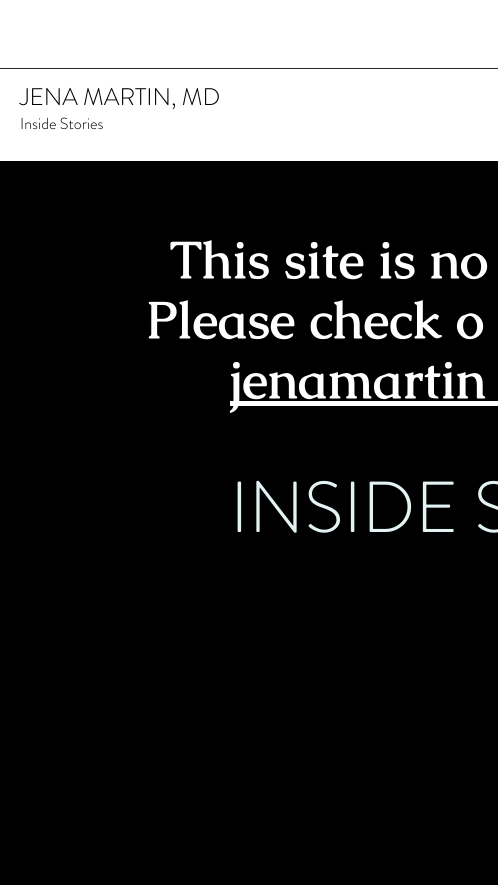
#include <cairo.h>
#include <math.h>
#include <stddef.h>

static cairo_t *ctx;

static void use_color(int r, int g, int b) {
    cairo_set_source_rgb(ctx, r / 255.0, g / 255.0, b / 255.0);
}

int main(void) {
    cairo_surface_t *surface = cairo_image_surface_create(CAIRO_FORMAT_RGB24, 498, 885);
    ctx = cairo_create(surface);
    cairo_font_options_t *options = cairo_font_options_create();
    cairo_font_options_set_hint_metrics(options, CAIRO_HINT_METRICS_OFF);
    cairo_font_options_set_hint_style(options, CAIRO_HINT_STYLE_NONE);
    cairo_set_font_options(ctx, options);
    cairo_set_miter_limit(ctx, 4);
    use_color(255, 255, 255);
    cairo_paint(ctx);
    use_color(38, 38, 38);
    cairo_rectangle(ctx, 0, 68, 498, 1);
    cairo_fill(ctx);
    cairo_select_font_face(ctx, "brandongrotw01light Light", CAIRO_FONT_SLANT_NORMAL, CAIRO_FONT_WEIGHT_NORMAL);
    cairo_set_font_size(ctx, 24);
    use_color(0, 0, 0);
    cairo_move_to(ctx, 20, 105);
    cairo_show_text(ctx, "JENA MARTIN, MD");
    cairo_set_font_size(ctx, 16);
    cairo_move_to(ctx, 20, 129);
    cairo_show_text(ctx, "Inside Stories");
    cairo_rectangle(ctx, 0, 161, 498, 724);
    cairo_fill(ctx);
    cairo_select_font_face(ctx, "Caudex", CAIRO_FONT_SLANT_NORMAL, CAIRO_FONT_WEIGHT_BOLD);
    cairo_set_font_size(ctx, 52);
    use_color(255, 255, 255);
    cairo_move_to(ctx, 170, 278);
    cairo_show_text(ctx, "This site is no");
    cairo_move_to(ctx, 146, 338);
    cairo_show_text(ctx, "Please check o");
    cairo_rectangle(ctx, 230, 401, 268, 5);
    cairo_fill(ctx);
    cairo_move_to(ctx, 230, 398);
    cairo_show_text(ctx, "jenamartin");
    cairo_select_font_face(ctx, "brandongrotw01light Light", CAIRO_FONT_SLANT_NORMAL, CAIRO_FONT_WEIGHT_NORMAL);
    cairo_set_font_size(ctx, 72);
    use_color(227, 242, 243);
    cairo_move_to(ctx, 230, 532);
    cairo_show_text(ctx, "INSIDE S");
    cairo_surface_write_to_png(surface, "result.png");
    cairo_font_options_destroy(options);
    cairo_destroy(ctx);
    cairo_surface_destroy(surface);
    return 0;
}
